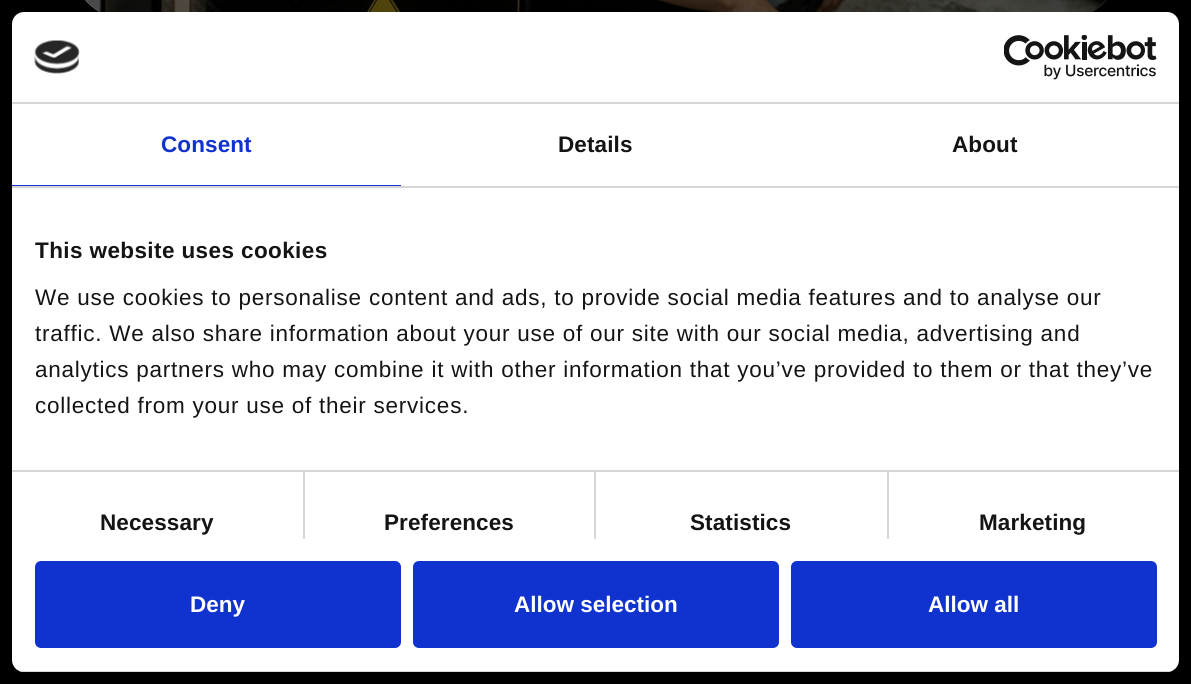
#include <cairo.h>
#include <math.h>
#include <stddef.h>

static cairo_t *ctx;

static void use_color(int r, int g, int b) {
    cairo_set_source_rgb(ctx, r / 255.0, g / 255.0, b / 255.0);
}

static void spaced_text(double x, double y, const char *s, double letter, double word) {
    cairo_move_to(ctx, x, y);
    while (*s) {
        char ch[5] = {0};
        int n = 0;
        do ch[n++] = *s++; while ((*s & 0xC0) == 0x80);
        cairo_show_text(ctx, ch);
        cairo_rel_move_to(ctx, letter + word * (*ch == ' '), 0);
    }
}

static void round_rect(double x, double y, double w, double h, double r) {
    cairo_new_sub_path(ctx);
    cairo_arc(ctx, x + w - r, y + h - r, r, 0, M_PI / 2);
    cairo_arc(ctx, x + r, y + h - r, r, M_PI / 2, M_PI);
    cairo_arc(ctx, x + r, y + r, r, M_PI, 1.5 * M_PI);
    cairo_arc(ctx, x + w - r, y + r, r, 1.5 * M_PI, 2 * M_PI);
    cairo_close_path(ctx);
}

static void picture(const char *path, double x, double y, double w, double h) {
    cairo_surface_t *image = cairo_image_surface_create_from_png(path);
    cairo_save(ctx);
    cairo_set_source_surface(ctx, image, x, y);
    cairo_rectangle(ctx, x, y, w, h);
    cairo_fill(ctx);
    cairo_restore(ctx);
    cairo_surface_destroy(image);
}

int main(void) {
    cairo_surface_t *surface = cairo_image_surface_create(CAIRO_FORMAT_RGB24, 1191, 684);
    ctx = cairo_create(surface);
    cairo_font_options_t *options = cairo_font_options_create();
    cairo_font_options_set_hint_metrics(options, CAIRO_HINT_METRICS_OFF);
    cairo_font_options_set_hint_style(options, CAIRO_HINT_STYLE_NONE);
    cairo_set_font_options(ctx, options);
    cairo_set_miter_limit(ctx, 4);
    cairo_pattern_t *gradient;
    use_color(0, 0, 0);
    cairo_paint(ctx);
    use_color(97, 96, 98);
    round_rect(71, -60, 1050, 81, 60);
    cairo_fill(ctx);
    picture("img1.png", 85, 0, 1021, 12);
    cairo_set_source_rgba(ctx, 0, 0, 0, 0.64);
    round_rect(71, -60, 1050, 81, 60);
    cairo_fill(ctx);
    gradient = cairo_pattern_create_radial(596, -156, 0, 596, -156, 554);
    cairo_pattern_add_color_stop_rgba(gradient, 0, 0, 0, 0, 0);
    cairo_pattern_add_color_stop_rgba(gradient, 1, 0, 0, 0, 0.2);
    cairo_set_source(ctx, gradient);
    cairo_pattern_destroy(gradient);
    round_rect(71, -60, 1050, 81, 60);
    cairo_fill(ctx);
    use_color(255, 255, 255);
    round_rect(12, 12, 1167, 660, 12);
    cairo_fill(ctx);
    use_color(214, 214, 214);
    cairo_rectangle(ctx, 12, 102, 1167, 2);
    cairo_fill(ctx);
    picture("img2.png", 34, 40, 46, 34);
    picture("img3.png", 1004, 35, 153, 45);
    cairo_rectangle(ctx, 12, 186, 1167, 2);
    cairo_fill(ctx);
    use_color(16, 50, 207);
    cairo_rectangle(ctx, 12, 185, 389, 1);
    cairo_fill(ctx);
    cairo_select_font_face(ctx, "Liberation Sans", CAIRO_FONT_SLANT_NORMAL, CAIRO_FONT_WEIGHT_BOLD);
    cairo_set_font_size(ctx, 22.5);
    spaced_text(161, 152, "Consent", 0.1, 0);
    use_color(20, 20, 20);
    spaced_text(558, 152, "Details", 0.1, 0);
    spaced_text(952, 152, "About", 0.1, 0);
    use_color(214, 214, 214);
    cairo_rectangle(ctx, 303, 471, 2, 68);
    cairo_fill(ctx);
    cairo_rectangle(ctx, 594, 471, 2, 68);
    cairo_fill(ctx);
    cairo_rectangle(ctx, 887, 471, 2, 68);
    cairo_fill(ctx);
    cairo_rectangle(ctx, 12, 470, 1167, 2);
    cairo_fill(ctx);
    use_color(20, 20, 20);
    spaced_text(35, 258, "This website uses cookies", 0.4, 0);
    cairo_select_font_face(ctx, "Liberation Sans", CAIRO_FONT_SLANT_NORMAL, CAIRO_FONT_WEIGHT_NORMAL);
    spaced_text(35, 305, "We use cookies to personalise content and ads, to provide social media features and to analyse our", 0.75, 0);
    spaced_text(35, 341, "traffic. We also share information about your use of our site with our social media, advertising and", 0.75, 0);
    spaced_text(35, 377, "analytics partners who may combine it with other information that you’ve provided to them or that they’ve", 0.75, 0);
    spaced_text(35, 413, "collected from your use of their services.", 0.75, 0);
    cairo_select_font_face(ctx, "Liberation Sans", CAIRO_FONT_SLANT_NORMAL, CAIRO_FONT_WEIGHT_BOLD);
    spaced_text(100, 530, "Necessary", 0.1, 0);
    spaced_text(384, 530, "Preferences", 0.1, 0);
    spaced_text(690, 530, "Statistics", 0.1, 0);
    spaced_text(979, 530, "Marketing", 0.1, 0);
    cairo_save(ctx);
    round_rect(12, 12, 1167, 660, 12);
    cairo_clip(ctx);
    use_color(214, 214, 214);
    cairo_rectangle(ctx, 12, 671, 1167, 1);
    cairo_fill(ctx);
    cairo_restore(ctx);
    use_color(16, 50, 207);
    round_rect(36.5, 562.5, 363, 84, 4.5);
    cairo_fill_preserve(ctx);
    cairo_set_line_width(ctx, 3);
    cairo_stroke(ctx);
    use_color(255, 255, 255);
    cairo_move_to(ctx, 190, 612);
    cairo_show_text(ctx, "Deny");
    use_color(16, 50, 207);
    round_rect(414.5, 562.5, 363, 84, 4.5);
    cairo_fill_preserve(ctx);
    cairo_stroke(ctx);
    use_color(255, 255, 255);
    cairo_move_to(ctx, 514, 612);
    cairo_show_text(ctx, "Allow selection");
    use_color(16, 50, 207);
    round_rect(792.5, 562.5, 363, 84, 4.5);
    cairo_fill_preserve(ctx);
    cairo_stroke(ctx);
    use_color(255, 255, 255);
    cairo_move_to(ctx, 928, 612);
    cairo_show_text(ctx, "Allow all");
    cairo_surface_write_to_png(surface, "result.png");
    cairo_font_options_destroy(options);
    cairo_destroy(ctx);
    cairo_surface_destroy(surface);
    return 0;
}
